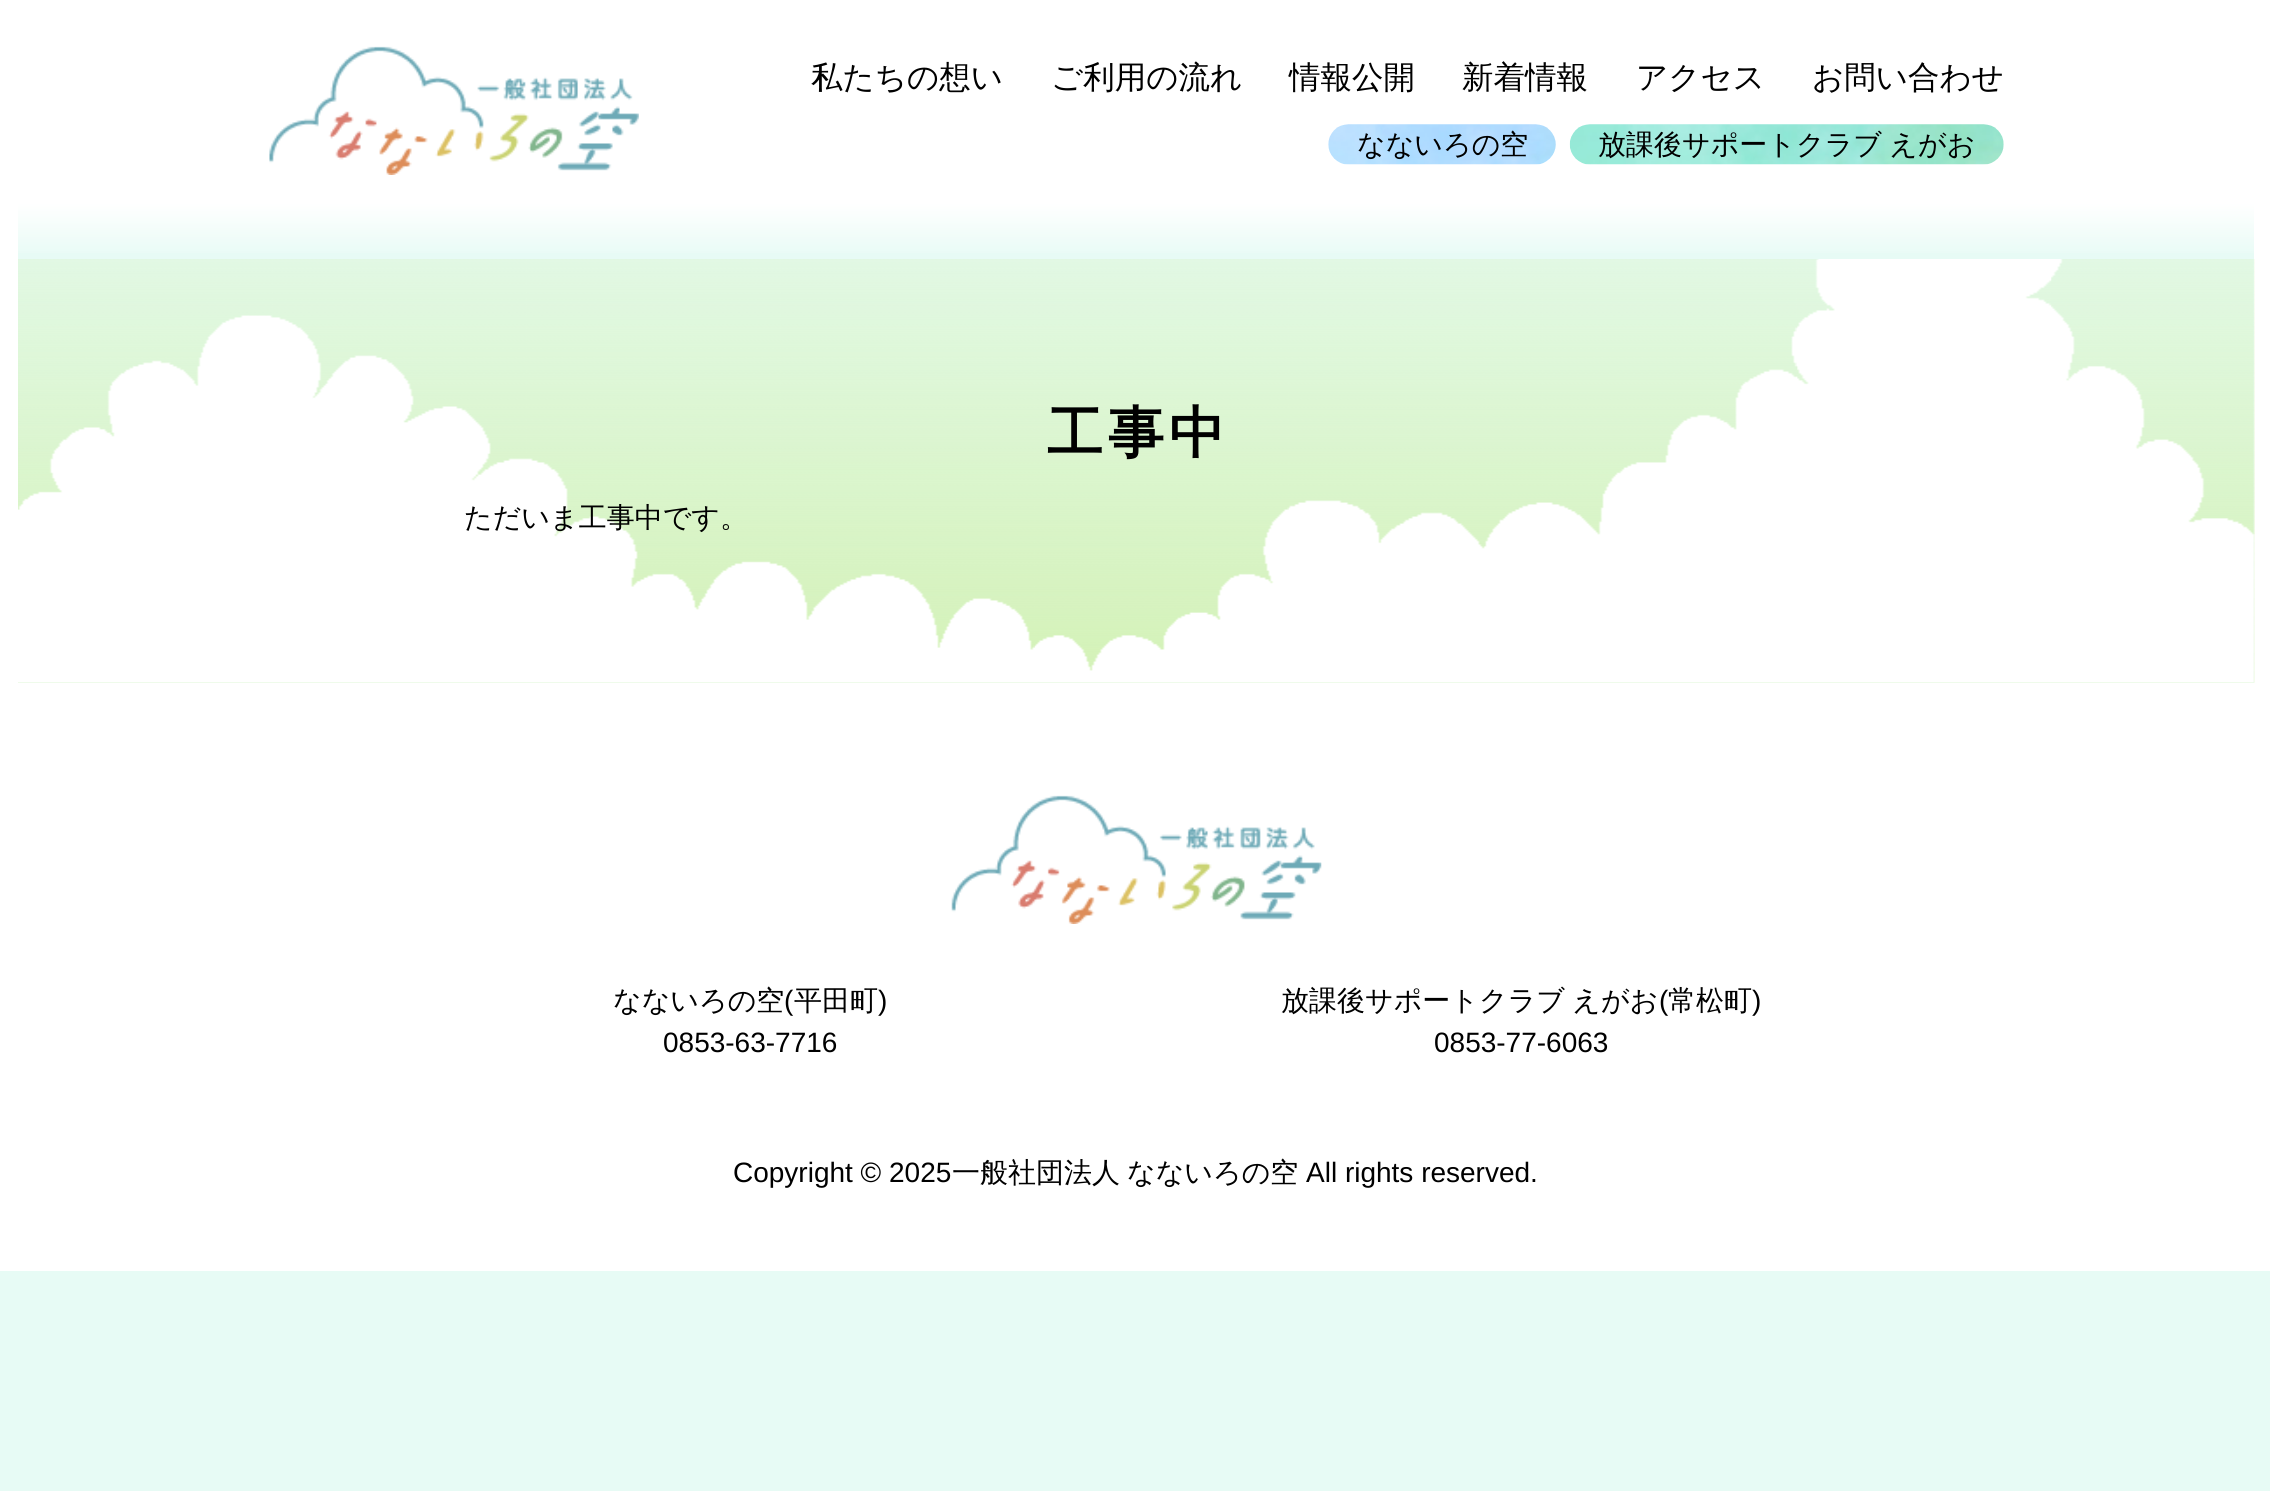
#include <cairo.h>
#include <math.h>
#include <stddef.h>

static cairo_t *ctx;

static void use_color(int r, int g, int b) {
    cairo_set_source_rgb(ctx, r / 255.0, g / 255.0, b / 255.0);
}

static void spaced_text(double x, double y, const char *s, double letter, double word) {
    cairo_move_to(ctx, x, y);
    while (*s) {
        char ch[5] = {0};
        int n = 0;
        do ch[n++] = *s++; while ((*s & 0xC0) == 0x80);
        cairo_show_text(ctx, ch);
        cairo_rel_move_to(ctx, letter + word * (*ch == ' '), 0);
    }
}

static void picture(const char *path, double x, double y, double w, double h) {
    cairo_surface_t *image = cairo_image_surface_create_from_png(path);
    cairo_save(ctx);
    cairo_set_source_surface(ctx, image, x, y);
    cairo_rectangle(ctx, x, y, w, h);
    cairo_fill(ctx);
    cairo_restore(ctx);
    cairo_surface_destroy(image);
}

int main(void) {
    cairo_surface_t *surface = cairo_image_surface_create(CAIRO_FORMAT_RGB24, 2270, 1491);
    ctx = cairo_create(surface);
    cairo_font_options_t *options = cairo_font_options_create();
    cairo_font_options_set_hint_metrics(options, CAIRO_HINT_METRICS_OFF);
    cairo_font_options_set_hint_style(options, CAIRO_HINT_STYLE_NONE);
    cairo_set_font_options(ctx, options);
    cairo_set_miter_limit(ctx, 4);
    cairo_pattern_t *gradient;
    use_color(231, 251, 245);
    cairo_paint(ctx);
    cairo_rectangle(ctx, 9, 9, 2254, 1253);
    use_color(255, 255, 255);
    cairo_set_line_width(ctx, 18);
    cairo_stroke(ctx);
    cairo_rectangle(ctx, 18, 18, 2236, 185);
    cairo_fill(ctx);
    picture("img1.png", 269, 46, 370, 129);
    cairo_select_font_face(ctx, "WenQuanYi Zen Hei Medium", CAIRO_FONT_SLANT_NORMAL, CAIRO_FONT_WEIGHT_NORMAL);
    cairo_set_font_size(ctx, 31.5);
    use_color(0, 0, 0);
    cairo_move_to(ctx, 811, 88);
    cairo_show_text(ctx, "私たちの想い");
    cairo_move_to(ctx, 1051, 88);
    cairo_show_text(ctx, "ご利用の流れ");
    cairo_move_to(ctx, 1289, 88);
    cairo_show_text(ctx, "情報公開");
    cairo_move_to(ctx, 1462, 88);
    cairo_show_text(ctx, "新着情報");
    cairo_move_to(ctx, 1636, 88);
    cairo_show_text(ctx, "アクセス");
    cairo_move_to(ctx, 1812, 88);
    cairo_show_text(ctx, "お問い合わせ");
    picture("img2.png", 1328, 124, 228, 41);
    cairo_set_font_size(ctx, 28);
    cairo_move_to(ctx, 1357, 154);
    cairo_show_text(ctx, "なないろの空");
    picture("img3.png", 1569, 124, 435, 41);
    spaced_text(1598, 154, "放課後サポートクラブ えがお", 0, -1);
    gradient = cairo_pattern_create_linear(1136, 203, 1136, 259);
    cairo_pattern_add_color_stop_rgba(gradient, 0, 1, 1, 1, 1);
    cairo_pattern_add_color_stop_rgba(gradient, 1, 0.906, 0.984, 0.961, 1);
    cairo_set_source(ctx, gradient);
    cairo_pattern_destroy(gradient);
    cairo_rectangle(ctx, 18, 203, 2236, 50);
    cairo_fill(ctx);
    picture("img4.png", 18, 259, 2237, 424);
    cairo_select_font_face(ctx, "WenQuanYi Zen Hei", CAIRO_FONT_SLANT_NORMAL, CAIRO_FONT_WEIGHT_BOLD);
    cairo_set_font_size(ctx, 56);
    use_color(0, 0, 0);
    spaced_text(1047, 452, "工事中", 5, 0);
    cairo_select_font_face(ctx, "WenQuanYi Zen Hei Medium", CAIRO_FONT_SLANT_NORMAL, CAIRO_FONT_WEIGHT_NORMAL);
    cairo_set_font_size(ctx, 28);
    cairo_move_to(ctx, 464, 527);
    cairo_show_text(ctx, "ただいま工事中です。");
    use_color(255, 255, 255);
    cairo_rectangle(ctx, 18, 683, 2236, 570);
    cairo_fill(ctx);
    picture("img5.png", 951, 795, 371, 129);
    use_color(0, 0, 0);
    cairo_move_to(ctx, 613, 1010);
    cairo_show_text(ctx, "なないろの空");
    cairo_select_font_face(ctx, "Liberation Sans", CAIRO_FONT_SLANT_NORMAL, CAIRO_FONT_WEIGHT_NORMAL);
    cairo_move_to(ctx, 784, 1010);
    cairo_show_text(ctx, "(");
    cairo_select_font_face(ctx, "WenQuanYi Zen Hei Medium", CAIRO_FONT_SLANT_NORMAL, CAIRO_FONT_WEIGHT_NORMAL);
    cairo_move_to(ctx, 794, 1010);
    cairo_show_text(ctx, "平田町");
    cairo_select_font_face(ctx, "Liberation Sans", CAIRO_FONT_SLANT_NORMAL, CAIRO_FONT_WEIGHT_NORMAL);
    cairo_move_to(ctx, 878, 1010);
    cairo_show_text(ctx, ")");
    cairo_move_to(ctx, 663, 1052);
    cairo_show_text(ctx, "0853-63-7716");
    cairo_select_font_face(ctx, "WenQuanYi Zen Hei Medium", CAIRO_FONT_SLANT_NORMAL, CAIRO_FONT_WEIGHT_NORMAL);
    spaced_text(1281, 1010, "放課後サポートクラブ えがお", 0, -1);
    cairo_select_font_face(ctx, "Liberation Sans", CAIRO_FONT_SLANT_NORMAL, CAIRO_FONT_WEIGHT_NORMAL);
    cairo_move_to(ctx, 1659, 1010);
    cairo_show_text(ctx, "(");
    cairo_select_font_face(ctx, "WenQuanYi Zen Hei Medium", CAIRO_FONT_SLANT_NORMAL, CAIRO_FONT_WEIGHT_NORMAL);
    cairo_move_to(ctx, 1668, 1010);
    cairo_show_text(ctx, "常松町");
    cairo_select_font_face(ctx, "Liberation Sans", CAIRO_FONT_SLANT_NORMAL, CAIRO_FONT_WEIGHT_NORMAL);
    cairo_move_to(ctx, 1752, 1010);
    cairo_show_text(ctx, ")");
    cairo_move_to(ctx, 1434, 1052);
    cairo_show_text(ctx, "0853-77-6063");
    cairo_move_to(ctx, 733, 1182);
    cairo_show_text(ctx, "Copyright © 2025");
    cairo_select_font_face(ctx, "WenQuanYi Zen Hei Medium", CAIRO_FONT_SLANT_NORMAL, CAIRO_FONT_WEIGHT_NORMAL);
    cairo_move_to(ctx, 952, 1182);
    cairo_show_text(ctx, "一般社団法人");
    cairo_move_to(ctx, 1127, 1182);
    cairo_show_text(ctx, "なないろの空");
    cairo_select_font_face(ctx, "Liberation Sans", CAIRO_FONT_SLANT_NORMAL, CAIRO_FONT_WEIGHT_NORMAL);
    cairo_move_to(ctx, 1306, 1182);
    cairo_show_text(ctx, "All rights reserved.");
    cairo_surface_write_to_png(surface, "result.png");
    cairo_font_options_destroy(options);
    cairo_destroy(ctx);
    cairo_surface_destroy(surface);
    return 0;
}
